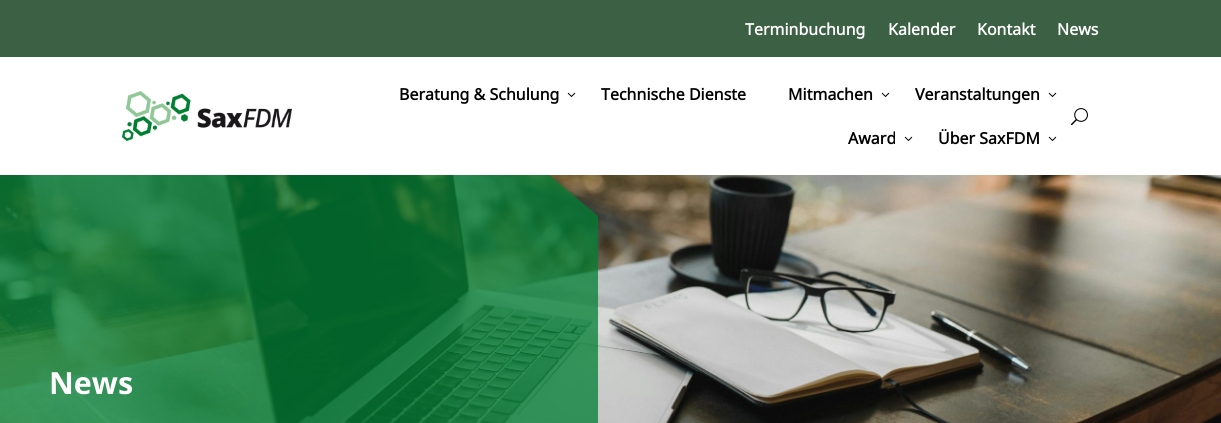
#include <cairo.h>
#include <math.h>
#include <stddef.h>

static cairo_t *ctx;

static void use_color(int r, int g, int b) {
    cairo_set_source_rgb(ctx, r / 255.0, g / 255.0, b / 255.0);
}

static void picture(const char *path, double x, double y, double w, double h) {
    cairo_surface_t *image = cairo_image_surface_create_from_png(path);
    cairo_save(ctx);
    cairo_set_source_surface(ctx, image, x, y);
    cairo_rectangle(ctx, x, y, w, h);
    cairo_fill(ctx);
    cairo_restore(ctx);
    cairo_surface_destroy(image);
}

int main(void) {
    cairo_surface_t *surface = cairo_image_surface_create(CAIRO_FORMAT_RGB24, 1221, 423);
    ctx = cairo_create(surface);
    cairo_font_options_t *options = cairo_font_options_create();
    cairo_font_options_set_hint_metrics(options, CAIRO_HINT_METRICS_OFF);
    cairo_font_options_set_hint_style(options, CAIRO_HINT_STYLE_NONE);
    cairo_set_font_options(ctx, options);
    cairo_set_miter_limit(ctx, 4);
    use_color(255, 255, 255);
    cairo_paint(ctx);
    use_color(59, 96, 67);
    cairo_rectangle(ctx, 0, 0, 1221, 57);
    cairo_fill(ctx);
    cairo_select_font_face(ctx, "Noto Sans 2", CAIRO_FONT_SLANT_NORMAL, CAIRO_FONT_WEIGHT_BOLD);
    cairo_set_font_size(ctx, 16);
    use_color(255, 255, 255);
    cairo_move_to(ctx, 745, 35);
    cairo_show_text(ctx, "Terminbuchung");
    cairo_move_to(ctx, 888, 35);
    cairo_show_text(ctx, "Kalender");
    cairo_move_to(ctx, 977, 35);
    cairo_show_text(ctx, "Kontakt");
    cairo_move_to(ctx, 1057, 35);
    cairo_show_text(ctx, "News");
    picture("img1.png", 122, 91, 170, 50);
    use_color(0, 0, 0);
    cairo_move_to(ctx, 399, 100);
    cairo_show_text(ctx, "Beratung & Schulung");
    picture("img2.png", 567, 92, 9, 5);
    cairo_move_to(ctx, 601, 100);
    cairo_show_text(ctx, "Technische Dienste");
    cairo_move_to(ctx, 788, 100);
    cairo_show_text(ctx, "Mitmachen");
    picture("img2.png", 881, 92, 9, 5);
    cairo_move_to(ctx, 915, 100);
    cairo_show_text(ctx, "Veranstaltungen");
    picture("img2.png", 1048, 92, 9, 5);
    cairo_move_to(ctx, 848, 144);
    cairo_show_text(ctx, "Award");
    picture("img2.png", 904, 136, 9, 5);
    cairo_move_to(ctx, 938, 144);
    cairo_show_text(ctx, "Über SaxFDM");
    picture("img2.png", 1048, 136, 9, 5);
    picture("img3.png", 1071, 108, 17, 18);
    picture("img4.png", 0, 175, 1221, 248);
    picture("img5.png", 0, 175, 598, 248);
    cairo_select_font_face(ctx, "Noto Sans", CAIRO_FONT_SLANT_NORMAL, CAIRO_FONT_WEIGHT_BOLD);
    cairo_set_font_size(ctx, 30.5);
    use_color(255, 255, 255);
    cairo_move_to(ctx, 49, 394);
    cairo_show_text(ctx, "News");
    cairo_surface_write_to_png(surface, "result.png");
    cairo_font_options_destroy(options);
    cairo_destroy(ctx);
    cairo_surface_destroy(surface);
    return 0;
}
